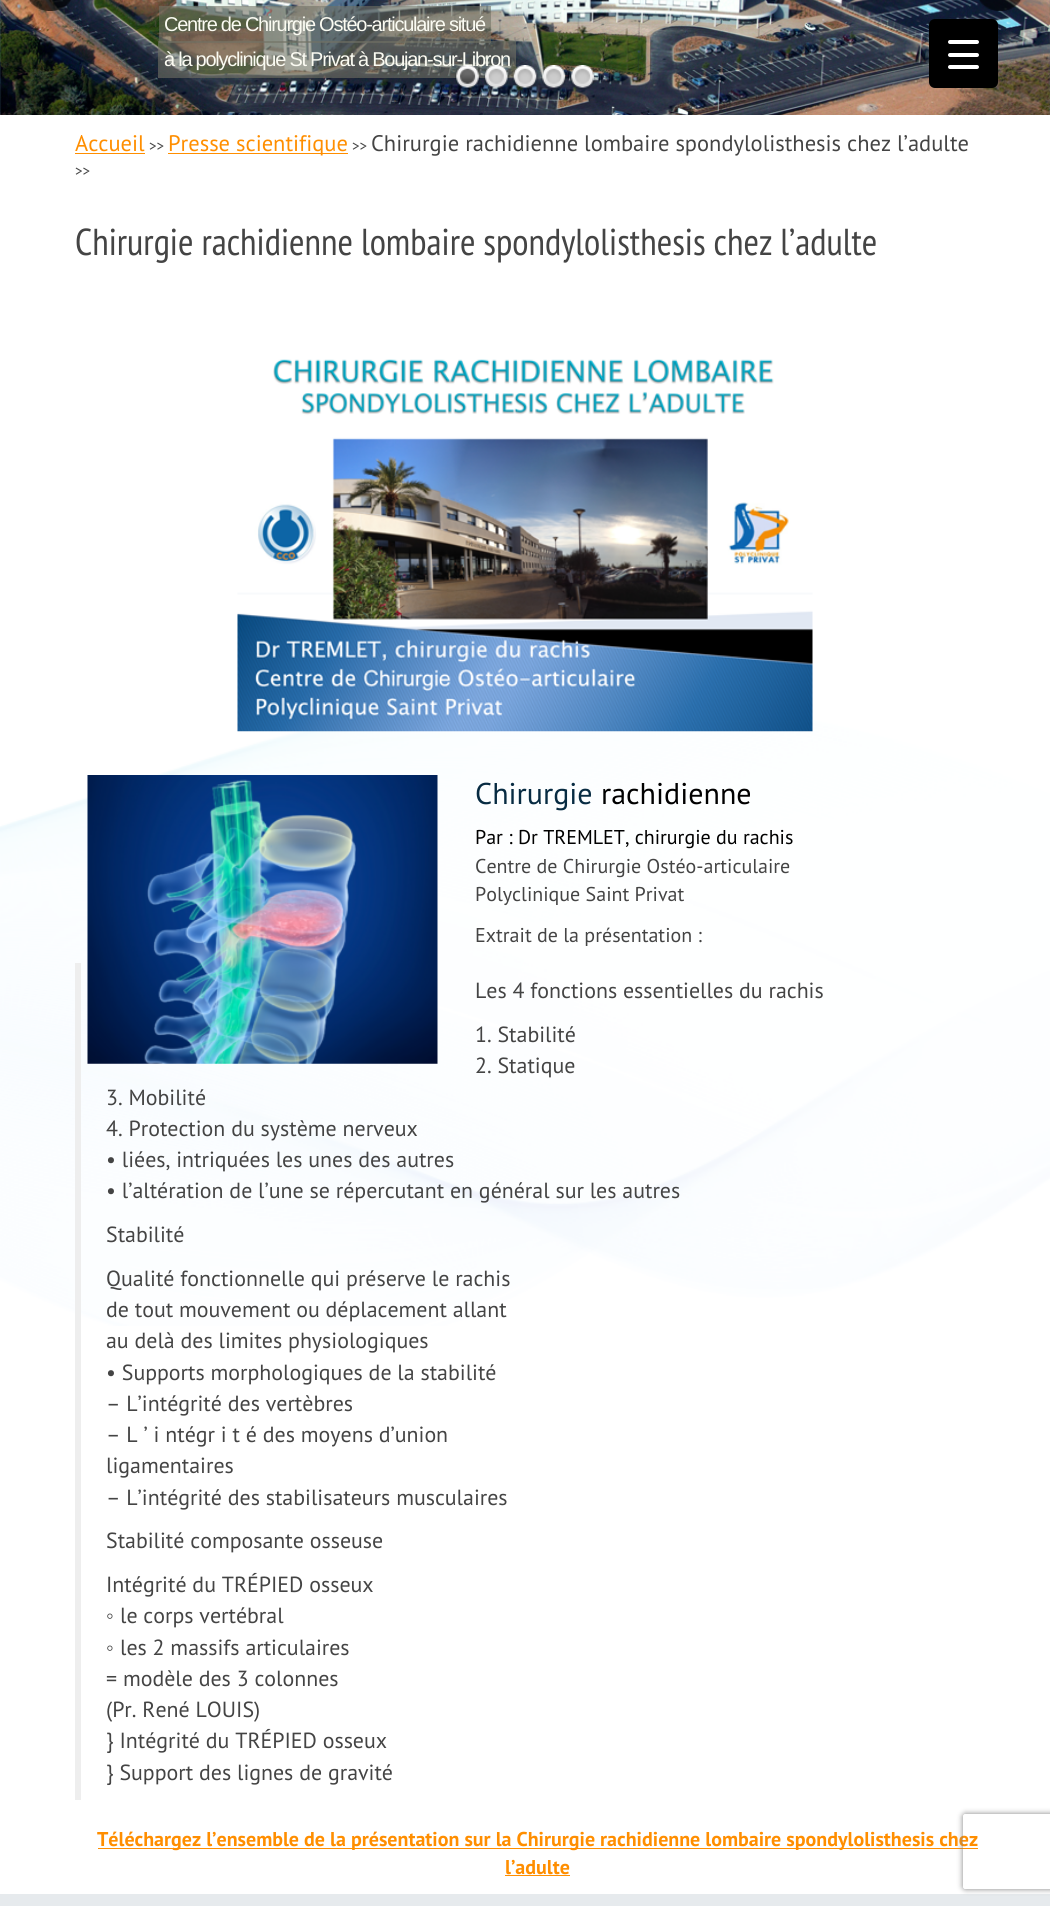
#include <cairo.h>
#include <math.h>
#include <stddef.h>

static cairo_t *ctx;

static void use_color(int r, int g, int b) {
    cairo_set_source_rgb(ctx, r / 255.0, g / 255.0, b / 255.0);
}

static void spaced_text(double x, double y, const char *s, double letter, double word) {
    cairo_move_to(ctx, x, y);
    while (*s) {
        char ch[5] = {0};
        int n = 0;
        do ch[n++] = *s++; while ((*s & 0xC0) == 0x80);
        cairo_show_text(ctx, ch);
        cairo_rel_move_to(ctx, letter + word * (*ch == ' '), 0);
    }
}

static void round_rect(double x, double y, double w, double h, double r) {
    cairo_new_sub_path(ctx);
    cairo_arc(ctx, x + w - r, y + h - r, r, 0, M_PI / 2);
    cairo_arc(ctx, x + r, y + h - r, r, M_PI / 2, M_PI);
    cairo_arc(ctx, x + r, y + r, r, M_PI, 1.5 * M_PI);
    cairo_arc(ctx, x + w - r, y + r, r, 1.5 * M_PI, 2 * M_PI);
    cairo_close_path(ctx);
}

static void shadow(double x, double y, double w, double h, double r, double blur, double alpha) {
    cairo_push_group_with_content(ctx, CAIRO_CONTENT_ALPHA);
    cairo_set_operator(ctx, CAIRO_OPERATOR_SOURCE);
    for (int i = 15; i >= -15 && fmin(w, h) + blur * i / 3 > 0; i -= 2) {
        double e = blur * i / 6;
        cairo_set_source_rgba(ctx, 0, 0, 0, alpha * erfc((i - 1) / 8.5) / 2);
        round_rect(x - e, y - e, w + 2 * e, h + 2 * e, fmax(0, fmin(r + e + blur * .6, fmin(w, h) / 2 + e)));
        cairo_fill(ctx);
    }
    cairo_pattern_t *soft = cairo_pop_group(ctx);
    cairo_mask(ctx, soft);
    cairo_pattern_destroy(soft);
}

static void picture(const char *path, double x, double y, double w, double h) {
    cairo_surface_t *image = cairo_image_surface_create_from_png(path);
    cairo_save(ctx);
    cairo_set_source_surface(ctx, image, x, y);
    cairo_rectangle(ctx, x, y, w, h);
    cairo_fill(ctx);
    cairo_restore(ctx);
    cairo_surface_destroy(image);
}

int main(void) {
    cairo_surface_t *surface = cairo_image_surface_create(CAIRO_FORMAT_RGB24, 1050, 1906);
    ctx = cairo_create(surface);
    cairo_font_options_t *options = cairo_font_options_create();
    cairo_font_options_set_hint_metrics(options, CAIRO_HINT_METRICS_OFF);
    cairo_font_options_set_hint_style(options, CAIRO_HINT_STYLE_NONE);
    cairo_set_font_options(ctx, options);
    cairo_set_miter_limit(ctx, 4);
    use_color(255, 255, 255);
    cairo_paint(ctx);
    picture("img1.png", 0, 701, 1050, 625);
    picture("img4.png", 0, 0, 1050, 115);
    picture("img2.png", 28, 0, 43, 11);
    picture("img3.png", 979, 0, 43, 11);
    cairo_set_source_rgba(ctx, 0.447, 0.447, 0.396, 0.6);
    cairo_rectangle(ctx, 159, 6, 332, 37);
    cairo_fill(ctx);
    cairo_select_font_face(ctx, "Liberation Sans", CAIRO_FONT_SLANT_NORMAL, CAIRO_FONT_WEIGHT_NORMAL);
    cairo_set_font_size(ctx, 20);
    use_color(251, 251, 242);
    spaced_text(164, 31, "Centre de Chirurgie Ostéo-articulaire situé", -1.25, 0);
    cairo_set_source_rgba(ctx, 0.447, 0.447, 0.396, 0.6);
    cairo_rectangle(ctx, 158, 41, 358, 37);
    cairo_fill(ctx);
    use_color(251, 251, 242);
    spaced_text(164, 66, "à la polyclinique St Privat à Boujan-sur-Libron", -1.25, 0);
    picture("img5.png", 455, 65, 25, 25);
    picture("img6.png", 484, 65, 25, 25);
    picture("img7.png", 512, 65, 26, 25);
    picture("img8.png", 541, 65, 25, 25);
    picture("img9.png", 570, 65, 25, 25);
    use_color(0, 0, 0);
    round_rect(929, 19, 69, 69, 6);
    cairo_fill(ctx);
    use_color(255, 255, 255);
    round_rect(948, 53, 31, 4, 2);
    cairo_fill(ctx);
    round_rect(948, 40, 31, 4, 2);
    cairo_fill(ctx);
    round_rect(948, 65, 31, 4, 2);
    cairo_fill(ctx);
    cairo_select_font_face(ctx, "PT Sans", CAIRO_FONT_SLANT_NORMAL, CAIRO_FONT_WEIGHT_NORMAL);
    cairo_set_font_size(ctx, 22.5);
    use_color(255, 142, 0);
    cairo_move_to(ctx, 75, 151);
    cairo_show_text(ctx, "Accueil");
    cairo_rectangle(ctx, 75, 153, 70, 1);
    cairo_fill(ctx);
    cairo_set_font_size(ctx, 15);
    use_color(68, 68, 68);
    cairo_move_to(ctx, 149, 151);
    cairo_show_text(ctx, ">>");
    use_color(255, 142, 0);
    cairo_rectangle(ctx, 168, 153, 180, 1);
    cairo_fill(ctx);
    cairo_set_font_size(ctx, 22.5);
    cairo_move_to(ctx, 168, 151);
    cairo_show_text(ctx, "Presse scientifique");
    cairo_set_font_size(ctx, 15);
    use_color(68, 68, 68);
    cairo_move_to(ctx, 352, 151);
    cairo_show_text(ctx, ">>");
    cairo_set_font_size(ctx, 22.5);
    cairo_move_to(ctx, 371, 151);
    cairo_show_text(ctx, "Chirurgie rachidienne lombaire spondylolisthesis chez l’adulte");
    cairo_set_font_size(ctx, 15);
    cairo_move_to(ctx, 75, 176);
    cairo_show_text(ctx, ">>");
    cairo_select_font_face(ctx, "PT Sans Narrow", CAIRO_FONT_SLANT_NORMAL, CAIRO_FONT_WEIGHT_NORMAL);
    cairo_set_font_size(ctx, 37.5);
    cairo_move_to(ctx, 75, 255);
    cairo_show_text(ctx, "Chirurgie rachidienne lombaire spondylolisthesis chez l’adulte");
    picture("img10.png", 237, 359, 576, 373);
    picture("img11.png", 87, 775, 351, 289);
    cairo_select_font_face(ctx, "PT Sans", CAIRO_FONT_SLANT_NORMAL, CAIRO_FONT_WEIGHT_NORMAL);
    cairo_set_font_size(ctx, 30);
    use_color(7, 43, 66);
    cairo_move_to(ctx, 475, 804);
    cairo_show_text(ctx, "Chirurgie");
    use_color(0, 0, 0);
    cairo_move_to(ctx, 601, 804);
    cairo_show_text(ctx, "rachidienne");
    cairo_set_font_size(ctx, 20);
    cairo_move_to(ctx, 475, 844);
    cairo_show_text(ctx, "Par : Dr TREMLET, chirurgie du rachis");
    use_color(68, 68, 68);
    cairo_move_to(ctx, 475, 873);
    cairo_show_text(ctx, "Centre de Chirurgie Ostéo-articulaire");
    cairo_move_to(ctx, 475, 901);
    cairo_show_text(ctx, "Polyclinique Saint Privat");
    cairo_move_to(ctx, 475, 942);
    cairo_show_text(ctx, "Extrait de la présentation :");
    use_color(238, 238, 238);
    cairo_rectangle(ctx, 75, 963, 6, 837);
    cairo_fill(ctx);
    cairo_set_font_size(ctx, 21.9);
    use_color(68, 68, 68);
    cairo_move_to(ctx, 475, 998);
    cairo_show_text(ctx, "Les 4 fonctions essentielles du rachis");
    cairo_move_to(ctx, 475, 1042);
    cairo_show_text(ctx, "1. Stabilité");
    cairo_move_to(ctx, 475, 1073);
    cairo_show_text(ctx, "2. Statique");
    cairo_move_to(ctx, 106, 1105);
    cairo_show_text(ctx, "3. Mobilité");
    cairo_move_to(ctx, 106, 1136);
    cairo_show_text(ctx, "4. Protection du système nerveux");
    cairo_move_to(ctx, 106, 1167);
    cairo_show_text(ctx, "• liées, intriquées les unes des autres");
    cairo_move_to(ctx, 106, 1198);
    cairo_show_text(ctx, "• l’altération de l’une se répercutant en général sur les autres");
    cairo_move_to(ctx, 106, 1242);
    cairo_show_text(ctx, "Stabilité");
    cairo_move_to(ctx, 106, 1286);
    cairo_show_text(ctx, "Qualité fonctionnelle qui préserve le rachis");
    cairo_move_to(ctx, 106, 1317);
    cairo_show_text(ctx, "de tout mouvement ou déplacement allant");
    cairo_move_to(ctx, 106, 1348);
    cairo_show_text(ctx, "au delà des limites physiologiques");
    cairo_move_to(ctx, 106, 1380);
    cairo_show_text(ctx, "• Supports morphologiques de la stabilité");
    cairo_move_to(ctx, 106, 1411);
    cairo_show_text(ctx, "– L’intégrité des vertèbres");
    cairo_move_to(ctx, 106, 1442);
    cairo_show_text(ctx, "– L ’ i ntégr i t é des moyens d’union");
    cairo_move_to(ctx, 106, 1473);
    cairo_show_text(ctx, "ligamentaires");
    cairo_move_to(ctx, 106, 1505);
    cairo_show_text(ctx, "– L’intégrité des stabilisateurs musculaires");
    cairo_move_to(ctx, 106, 1548);
    cairo_show_text(ctx, "Stabilité composante osseuse");
    cairo_move_to(ctx, 106, 1592);
    cairo_show_text(ctx, "Intégrité du TRÉPIED osseux");
    cairo_select_font_face(ctx, "Liberation Sans", CAIRO_FONT_SLANT_NORMAL, CAIRO_FONT_WEIGHT_NORMAL);
    cairo_move_to(ctx, 106, 1623);
    cairo_show_text(ctx, "◦");
    cairo_select_font_face(ctx, "PT Sans", CAIRO_FONT_SLANT_NORMAL, CAIRO_FONT_WEIGHT_NORMAL);
    cairo_move_to(ctx, 120, 1623);
    cairo_show_text(ctx, "le corps vertébral");
    cairo_select_font_face(ctx, "Liberation Sans", CAIRO_FONT_SLANT_NORMAL, CAIRO_FONT_WEIGHT_NORMAL);
    cairo_move_to(ctx, 106, 1655);
    cairo_show_text(ctx, "◦");
    cairo_select_font_face(ctx, "PT Sans", CAIRO_FONT_SLANT_NORMAL, CAIRO_FONT_WEIGHT_NORMAL);
    cairo_move_to(ctx, 120, 1655);
    cairo_show_text(ctx, "les 2 massifs articulaires");
    cairo_move_to(ctx, 106, 1686);
    cairo_show_text(ctx, "= modèle des 3 colonnes");
    cairo_move_to(ctx, 106, 1717);
    cairo_show_text(ctx, "(Pr. René LOUIS)");
    cairo_move_to(ctx, 106, 1748);
    cairo_show_text(ctx, "} Intégrité du TRÉPIED osseux");
    cairo_move_to(ctx, 106, 1780);
    cairo_show_text(ctx, "} Support des lignes de gravité");
    use_color(255, 142, 0);
    cairo_rectangle(ctx, 98, 1848, 880, 1);
    cairo_fill(ctx);
    cairo_select_font_face(ctx, "PT Sans", CAIRO_FONT_SLANT_NORMAL, CAIRO_FONT_WEIGHT_BOLD);
    cairo_set_font_size(ctx, 20);
    cairo_move_to(ctx, 97, 1846);
    cairo_show_text(ctx, "Téléchargez l’ensemble de la présentation sur la Chirurgie rachidienne lombaire spondylolisthesis chez");
    cairo_move_to(ctx, 505, 1874);
    cairo_show_text(ctx, "l’adulte");
    cairo_rectangle(ctx, 505, 1875, 65, 1);
    cairo_fill(ctx);
    use_color(230, 234, 237);
    cairo_rectangle(ctx, 0, 1894, 1050, 12);
    cairo_fill(ctx);
    cairo_save(ctx);
    cairo_set_fill_rule(ctx, CAIRO_FILL_RULE_EVEN_ODD);
    cairo_new_path(ctx);
    cairo_move_to(ctx, 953, 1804);
    cairo_line_to(ctx, 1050, 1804);
    cairo_line_to(ctx, 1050, 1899);
    cairo_line_to(ctx, 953, 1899);
    cairo_close_path(ctx);
    cairo_move_to(ctx, 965.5, 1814);
    cairo_line_to(ctx, 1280.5, 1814);
    cairo_curve_to(ctx, 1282, 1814, 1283, 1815, 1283, 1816.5);
    cairo_line_to(ctx, 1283, 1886.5);
    cairo_curve_to(ctx, 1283, 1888, 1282, 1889, 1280.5, 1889);
    cairo_line_to(ctx, 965.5, 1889);
    cairo_curve_to(ctx, 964, 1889, 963, 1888, 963, 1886.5);
    cairo_line_to(ctx, 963, 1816.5);
    cairo_curve_to(ctx, 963, 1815, 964, 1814, 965.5, 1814);
    cairo_close_path(ctx);
    cairo_clip(ctx);
    use_color(128, 128, 128);
    shadow(963, 1814, 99, 75, 2.5, 3, 1);
    cairo_restore(ctx);
    cairo_surface_write_to_png(surface, "result.png");
    cairo_font_options_destroy(options);
    cairo_destroy(ctx);
    cairo_surface_destroy(surface);
    return 0;
}
